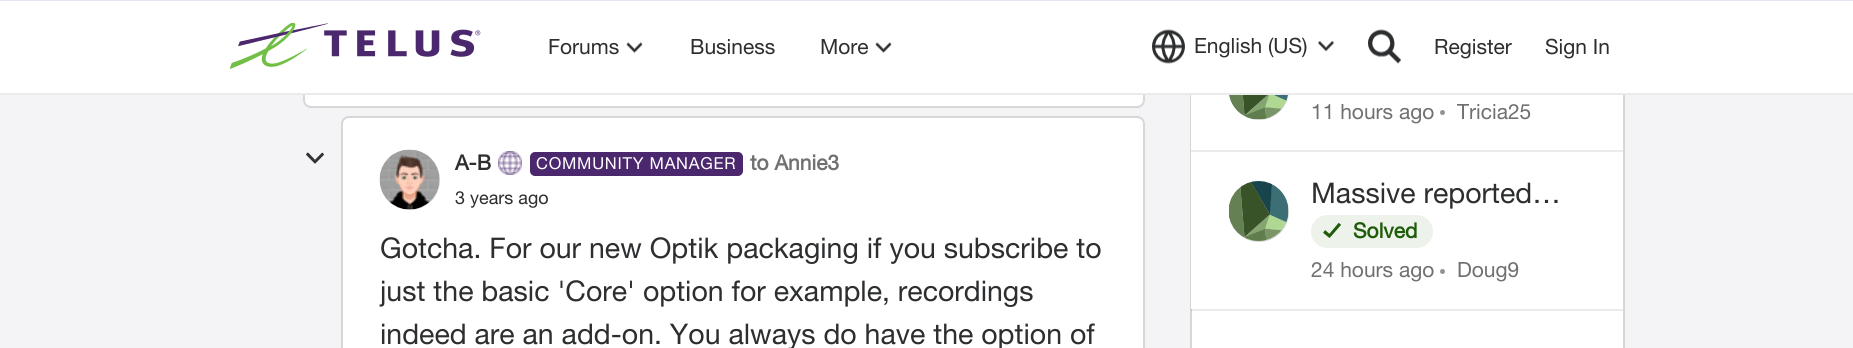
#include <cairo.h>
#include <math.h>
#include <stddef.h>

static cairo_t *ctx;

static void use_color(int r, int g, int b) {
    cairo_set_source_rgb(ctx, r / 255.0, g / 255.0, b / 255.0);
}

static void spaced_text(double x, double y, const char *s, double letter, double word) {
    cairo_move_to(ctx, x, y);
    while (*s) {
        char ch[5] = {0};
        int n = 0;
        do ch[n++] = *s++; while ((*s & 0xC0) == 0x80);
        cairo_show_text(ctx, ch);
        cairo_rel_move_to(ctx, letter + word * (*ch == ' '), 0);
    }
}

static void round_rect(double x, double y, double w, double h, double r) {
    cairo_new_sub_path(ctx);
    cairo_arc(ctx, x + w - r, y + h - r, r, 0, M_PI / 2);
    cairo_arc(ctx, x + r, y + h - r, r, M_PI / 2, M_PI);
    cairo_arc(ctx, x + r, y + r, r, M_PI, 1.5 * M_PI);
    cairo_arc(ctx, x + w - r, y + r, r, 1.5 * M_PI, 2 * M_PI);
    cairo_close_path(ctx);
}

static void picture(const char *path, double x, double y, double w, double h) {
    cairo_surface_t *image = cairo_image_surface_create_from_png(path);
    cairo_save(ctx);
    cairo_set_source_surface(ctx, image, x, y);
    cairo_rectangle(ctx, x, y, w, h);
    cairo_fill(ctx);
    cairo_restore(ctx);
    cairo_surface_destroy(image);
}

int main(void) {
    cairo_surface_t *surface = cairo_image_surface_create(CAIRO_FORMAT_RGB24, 1853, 348);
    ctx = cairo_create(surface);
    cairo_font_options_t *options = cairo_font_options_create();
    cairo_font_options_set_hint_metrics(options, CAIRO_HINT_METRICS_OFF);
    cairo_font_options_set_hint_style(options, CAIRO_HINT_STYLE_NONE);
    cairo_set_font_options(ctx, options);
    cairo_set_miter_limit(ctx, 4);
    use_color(244, 244, 247);
    cairo_paint(ctx);
    use_color(255, 255, 255);
    round_rect(303, -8, 842, 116, 8);
    cairo_fill(ctx);
    round_rect(304, -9, 840, 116, 7);
    cairo_set_source_rgba(ctx, 0, 0, 0, 0.16);
    cairo_stroke(ctx);
    use_color(255, 255, 255);
    cairo_rectangle(ctx, 1192, 309, 431, 39);
    cairo_fill(ctx);
    cairo_rectangle(ctx, 1191, -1, 433, 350);
    use_color(214, 214, 214);
    cairo_stroke(ctx);
    use_color(255, 255, 255);
    cairo_rectangle(ctx, 1191, 95, 432, 55);
    cairo_fill(ctx);
    use_color(217, 217, 217);
    cairo_arc(ctx, 1259, 90, 30, 0, 2 * M_PI);
    cairo_fill(ctx);
    use_color(255, 255, 255);
    cairo_rectangle(ctx, 0, 1, 1853, 92);
    cairo_fill(ctx);
    use_color(235, 235, 235);
    cairo_rectangle(ctx, 0, 93, 1853, 2);
    cairo_fill(ctx);
    use_color(228, 229, 247);
    cairo_rectangle(ctx, 0, 0, 1853, 1);
    cairo_fill(ctx);
    picture("img1.png", 230, 23, 251, 46);
    cairo_select_font_face(ctx, "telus", CAIRO_FONT_SLANT_NORMAL, CAIRO_FONT_WEIGHT_NORMAL);
    cairo_set_font_size(ctx, 21);
    use_color(44, 46, 48);
    cairo_move_to(ctx, 548, 54);
    cairo_show_text(ctx, "Forums");
    picture("img2.png", 626, 42, 17, 11);
    cairo_move_to(ctx, 690, 54);
    cairo_show_text(ctx, "Business");
    cairo_move_to(ctx, 820, 54);
    cairo_show_text(ctx, "More");
    picture("img3.png", 875, 42, 17, 11);
    picture("img4.png", 1152, 29, 33, 35);
    cairo_move_to(ctx, 1194, 53);
    cairo_show_text(ctx, "English (US)");
    picture("img5.png", 1318, 40, 16, 12);
    picture("img6.png", 1368, 29, 33, 35);
    cairo_move_to(ctx, 1434, 54);
    cairo_show_text(ctx, "Register");
    cairo_move_to(ctx, 1545, 54);
    cairo_show_text(ctx, "Sign In");
    picture("img7.png", 306, 152, 18, 12);
    use_color(255, 255, 255);
    round_rect(341, 116, 804, 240, 8);
    cairo_fill(ctx);
    round_rect(342, 117, 802, 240, 7);
    cairo_set_source_rgba(ctx, 0, 0, 0, 0.16);
    cairo_stroke(ctx);
    use_color(217, 217, 217);
    cairo_arc(ctx, 410, 180, 30, 0, 2 * M_PI);
    cairo_fill(ctx);
    picture("img8.png", 379, 149, 61, 61);
    cairo_select_font_face(ctx, "telus", CAIRO_FONT_SLANT_NORMAL, CAIRO_FONT_WEIGHT_BOLD);
    use_color(44, 46, 48);
    cairo_move_to(ctx, 455, 170);
    cairo_show_text(ctx, "A-B");
    picture("img9.png", 498, 151, 24, 24);
    use_color(75, 40, 109);
    round_rect(531, 153, 211, 22, 4);
    cairo_fill_preserve(ctx);
    cairo_stroke(ctx);
    cairo_select_font_face(ctx, "telus", CAIRO_FONT_SLANT_NORMAL, CAIRO_FONT_WEIGHT_NORMAL);
    cairo_set_font_size(ctx, 16.5);
    use_color(255, 255, 255);
    spaced_text(536, 169, "COMMUNITY MANAGER", 0.75, 0);
    cairo_select_font_face(ctx, "telus", CAIRO_FONT_SLANT_NORMAL, CAIRO_FONT_WEIGHT_BOLD);
    cairo_set_font_size(ctx, 21);
    use_color(112, 112, 112);
    cairo_move_to(ctx, 750, 170);
    cairo_show_text(ctx, "to Annie3");
    cairo_select_font_face(ctx, "telus", CAIRO_FONT_SLANT_NORMAL, CAIRO_FONT_WEIGHT_NORMAL);
    cairo_set_font_size(ctx, 18);
    use_color(44, 46, 48);
    cairo_move_to(ctx, 455, 204);
    cairo_show_text(ctx, "3 years ago");
    cairo_set_font_size(ctx, 28.5);
    cairo_move_to(ctx, 380, 258);
    cairo_show_text(ctx, "Gotcha. For our new Optik packaging if you subscribe to");
    cairo_move_to(ctx, 380, 301);
    cairo_show_text(ctx, "just the basic 'Core' option for example, recordings");
    cairo_move_to(ctx, 380, 344);
    cairo_show_text(ctx, "indeed are an add-on. You always do have the option of");
    use_color(235, 235, 235);
    cairo_rectangle(ctx, 1191, 150, 432, 2);
    cairo_fill(ctx);
    picture("img10.png", 1229, 95, 59, 25);
    cairo_set_font_size(ctx, 21);
    use_color(112, 112, 112);
    cairo_move_to(ctx, 1311, 119);
    cairo_show_text(ctx, "11 hours ago");
    use_color(148, 148, 148);
    cairo_new_path(ctx);
    cairo_arc(ctx, 1442.5, 112.5, 2.5, 0, 2 * M_PI);
    cairo_fill(ctx);
    use_color(112, 112, 112);
    cairo_move_to(ctx, 1457, 119);
    cairo_show_text(ctx, "Tricia25");
    use_color(255, 255, 255);
    cairo_rectangle(ctx, 1191, 152, 432, 157);
    cairo_fill(ctx);
    use_color(217, 217, 217);
    cairo_arc(ctx, 1259, 212, 30, 0, 2 * M_PI);
    cairo_fill(ctx);
    picture("img11.png", 1229, 181, 60, 60);
    cairo_set_font_size(ctx, 28.5);
    use_color(44, 46, 48);
    cairo_move_to(ctx, 1311, 203);
    cairo_show_text(ctx, "Massive reported…");
    use_color(237, 242, 235);
    round_rect(1311, 215, 122, 33, 16.5);
    cairo_fill(ctx);
    picture("img12.png", 1323, 223, 18, 15);
    cairo_select_font_face(ctx, "telus", CAIRO_FONT_SLANT_NORMAL, CAIRO_FONT_WEIGHT_BOLD);
    cairo_set_font_size(ctx, 21);
    use_color(31, 92, 9);
    cairo_move_to(ctx, 1353, 238);
    cairo_show_text(ctx, "Solved");
    cairo_select_font_face(ctx, "telus", CAIRO_FONT_SLANT_NORMAL, CAIRO_FONT_WEIGHT_NORMAL);
    use_color(112, 112, 112);
    cairo_move_to(ctx, 1311, 277);
    cairo_show_text(ctx, "24 hours ago");
    use_color(148, 148, 148);
    cairo_new_path(ctx);
    cairo_arc(ctx, 1442.5, 271.5, 2.5, 0, 2 * M_PI);
    cairo_fill(ctx);
    use_color(112, 112, 112);
    cairo_move_to(ctx, 1457, 277);
    cairo_show_text(ctx, "Doug9");
    cairo_set_source_rgba(ctx, 0, 0, 0, 0.08);
    cairo_rectangle(ctx, 1191, 309, 432, 2);
    cairo_fill(ctx);
    cairo_surface_write_to_png(surface, "result.png");
    cairo_font_options_destroy(options);
    cairo_destroy(ctx);
    cairo_surface_destroy(surface);
    return 0;
}
